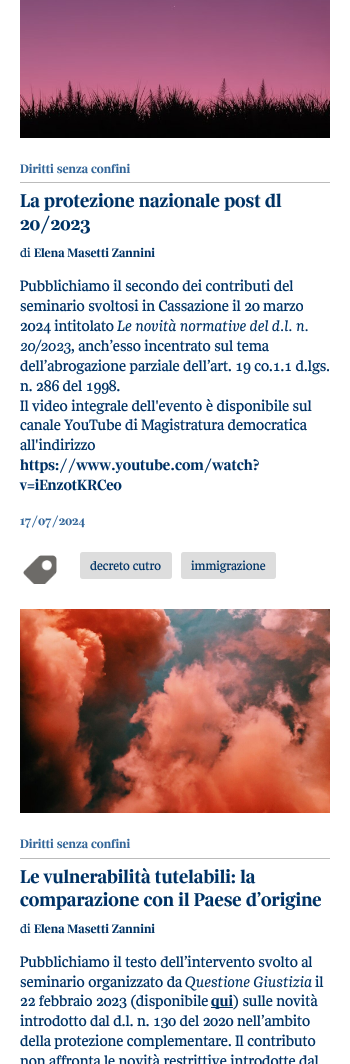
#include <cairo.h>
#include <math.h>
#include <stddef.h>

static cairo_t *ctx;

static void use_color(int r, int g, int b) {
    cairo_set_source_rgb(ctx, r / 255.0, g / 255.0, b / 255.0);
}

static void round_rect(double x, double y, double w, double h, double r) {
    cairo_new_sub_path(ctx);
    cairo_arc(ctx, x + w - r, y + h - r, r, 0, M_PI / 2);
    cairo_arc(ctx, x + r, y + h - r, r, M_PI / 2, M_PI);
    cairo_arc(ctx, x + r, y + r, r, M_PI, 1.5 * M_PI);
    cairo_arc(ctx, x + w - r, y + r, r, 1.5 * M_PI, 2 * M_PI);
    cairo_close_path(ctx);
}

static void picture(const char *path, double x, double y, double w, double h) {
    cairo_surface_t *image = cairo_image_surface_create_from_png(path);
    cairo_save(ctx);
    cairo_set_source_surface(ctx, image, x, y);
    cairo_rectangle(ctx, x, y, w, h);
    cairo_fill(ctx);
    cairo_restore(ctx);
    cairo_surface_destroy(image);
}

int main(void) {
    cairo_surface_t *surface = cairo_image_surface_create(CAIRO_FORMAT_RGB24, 350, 1064);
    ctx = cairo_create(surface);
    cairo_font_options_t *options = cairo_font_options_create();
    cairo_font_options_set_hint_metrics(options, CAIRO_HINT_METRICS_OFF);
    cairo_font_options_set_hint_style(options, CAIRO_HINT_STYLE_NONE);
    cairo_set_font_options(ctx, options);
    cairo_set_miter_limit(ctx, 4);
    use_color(255, 255, 255);
    cairo_paint(ctx);
    picture("img1.png", 20, 0, 310, 138);
    use_color(187, 187, 187);
    cairo_rectangle(ctx, 20, 182, 310, 1);
    cairo_fill(ctx);
    cairo_select_font_face(ctx, "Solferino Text", CAIRO_FONT_SLANT_NORMAL, CAIRO_FONT_WEIGHT_BOLD);
    cairo_set_font_size(ctx, 12.75);
    use_color(51, 102, 153);
    cairo_move_to(ctx, 20, 173);
    cairo_show_text(ctx, "Diritti senza confini");
    cairo_set_font_size(ctx, 19.25);
    use_color(0, 51, 102);
    cairo_move_to(ctx, 20, 207);
    cairo_show_text(ctx, "La protezione nazionale post dl");
    cairo_move_to(ctx, 20, 230);
    cairo_show_text(ctx, "20/2023");
    cairo_select_font_face(ctx, "Solferino Text", CAIRO_FONT_SLANT_NORMAL, CAIRO_FONT_WEIGHT_NORMAL);
    cairo_set_font_size(ctx, 12.75);
    cairo_move_to(ctx, 20, 257);
    cairo_show_text(ctx, "di");
    cairo_select_font_face(ctx, "Solferino Text", CAIRO_FONT_SLANT_NORMAL, CAIRO_FONT_WEIGHT_BOLD);
    cairo_move_to(ctx, 34, 257);
    cairo_show_text(ctx, "Elena Masetti Zannini");
    cairo_select_font_face(ctx, "Solferino Text", CAIRO_FONT_SLANT_NORMAL, CAIRO_FONT_WEIGHT_NORMAL);
    cairo_set_font_size(ctx, 15.4);
    cairo_move_to(ctx, 20, 291);
    cairo_show_text(ctx, "Pubblichiamo il secondo dei contributi del");
    cairo_move_to(ctx, 20, 311);
    cairo_show_text(ctx, "seminario svoltosi in Cassazione il 20 marzo");
    cairo_move_to(ctx, 20, 331);
    cairo_show_text(ctx, "2024 intitolato");
    cairo_select_font_face(ctx, "Solferino Text", CAIRO_FONT_SLANT_ITALIC, CAIRO_FONT_WEIGHT_NORMAL);
    cairo_move_to(ctx, 117, 331);
    cairo_show_text(ctx, "Le novità normative del d.l. n.");
    cairo_move_to(ctx, 20, 351);
    cairo_show_text(ctx, "20/2023");
    cairo_select_font_face(ctx, "Solferino Text", CAIRO_FONT_SLANT_NORMAL, CAIRO_FONT_WEIGHT_NORMAL);
    cairo_move_to(ctx, 71, 351);
    cairo_show_text(ctx, ", anch’esso incentrato sul tema");
    cairo_move_to(ctx, 20, 371);
    cairo_show_text(ctx, "dell’abrogazione parziale dell’art. 19 co.1.1 d.lgs.");
    cairo_move_to(ctx, 20, 391);
    cairo_show_text(ctx, "n. 286 del 1998.");
    cairo_move_to(ctx, 20, 411);
    cairo_show_text(ctx, "Il video integrale dell'evento è disponibile sul");
    cairo_move_to(ctx, 20, 430);
    cairo_show_text(ctx, "canale YouTube di Magistratura democratica");
    cairo_move_to(ctx, 20, 450);
    cairo_show_text(ctx, "all'indirizzo");
    cairo_select_font_face(ctx, "Solferino Text", CAIRO_FONT_SLANT_NORMAL, CAIRO_FONT_WEIGHT_BOLD);
    cairo_move_to(ctx, 20, 470);
    cairo_show_text(ctx, "https://www.youtube.com/watch?");
    cairo_move_to(ctx, 20, 490);
    cairo_show_text(ctx, "v=iEnzotKRCe0");
    cairo_set_font_size(ctx, 12.75);
    use_color(51, 102, 153);
    cairo_move_to(ctx, 20, 525);
    cairo_show_text(ctx, "17/07/2024");
    picture("img2.png", 23, 555, 34, 29);
    use_color(221, 221, 221);
    round_rect(80, 552, 92, 27, 2.5);
    cairo_fill(ctx);
    cairo_select_font_face(ctx, "Solferino Text", CAIRO_FONT_SLANT_NORMAL, CAIRO_FONT_WEIGHT_NORMAL);
    use_color(0, 51, 102);
    cairo_move_to(ctx, 90, 570);
    cairo_show_text(ctx, "decreto cutro");
    use_color(221, 221, 221);
    round_rect(181, 552, 95, 27, 2.5);
    cairo_fill(ctx);
    use_color(0, 51, 102);
    cairo_move_to(ctx, 191, 570);
    cairo_show_text(ctx, "immigrazione");
    picture("img3.png", 20, 609, 310, 204);
    use_color(187, 187, 187);
    cairo_rectangle(ctx, 20, 858, 310, 1);
    cairo_fill(ctx);
    cairo_select_font_face(ctx, "Solferino Text", CAIRO_FONT_SLANT_NORMAL, CAIRO_FONT_WEIGHT_BOLD);
    use_color(51, 102, 153);
    cairo_move_to(ctx, 20, 848);
    cairo_show_text(ctx, "Diritti senza confini");
    cairo_set_font_size(ctx, 19.25);
    use_color(0, 51, 102);
    cairo_move_to(ctx, 20, 883);
    cairo_show_text(ctx, "Le vulnerabilità tutelabili: la");
    cairo_move_to(ctx, 20, 906);
    cairo_show_text(ctx, "comparazione con il Paese d’origine");
    cairo_select_font_face(ctx, "Solferino Text", CAIRO_FONT_SLANT_NORMAL, CAIRO_FONT_WEIGHT_NORMAL);
    cairo_set_font_size(ctx, 12.75);
    cairo_move_to(ctx, 20, 933);
    cairo_show_text(ctx, "di");
    cairo_select_font_face(ctx, "Solferino Text", CAIRO_FONT_SLANT_NORMAL, CAIRO_FONT_WEIGHT_BOLD);
    cairo_move_to(ctx, 34, 933);
    cairo_show_text(ctx, "Elena Masetti Zannini");
    cairo_select_font_face(ctx, "Solferino Text", CAIRO_FONT_SLANT_NORMAL, CAIRO_FONT_WEIGHT_NORMAL);
    cairo_set_font_size(ctx, 15.4);
    cairo_move_to(ctx, 20, 967);
    cairo_show_text(ctx, "Pubblichiamo il testo dell’intervento svolto al");
    cairo_move_to(ctx, 20, 987);
    cairo_show_text(ctx, "seminario organizzato da");
    cairo_select_font_face(ctx, "Solferino Text", CAIRO_FONT_SLANT_ITALIC, CAIRO_FONT_WEIGHT_NORMAL);
    cairo_move_to(ctx, 185, 987);
    cairo_show_text(ctx, "Questione Giustizia");
    cairo_select_font_face(ctx, "Solferino Text", CAIRO_FONT_SLANT_NORMAL, CAIRO_FONT_WEIGHT_NORMAL);
    cairo_move_to(ctx, 315, 987);
    cairo_show_text(ctx, "il");
    cairo_move_to(ctx, 20, 1006);
    cairo_show_text(ctx, "22 febbraio 2023 (disponibile");
    cairo_rectangle(ctx, 211, 1007, 22, 1);
    cairo_fill(ctx);
    cairo_select_font_face(ctx, "Solferino Text", CAIRO_FONT_SLANT_NORMAL, CAIRO_FONT_WEIGHT_BOLD);
    cairo_move_to(ctx, 211, 1006);
    cairo_show_text(ctx, "qui");
    cairo_select_font_face(ctx, "Solferino Text", CAIRO_FONT_SLANT_NORMAL, CAIRO_FONT_WEIGHT_NORMAL);
    cairo_move_to(ctx, 233, 1006);
    cairo_show_text(ctx, ") sulle novità");
    cairo_move_to(ctx, 20, 1026);
    cairo_show_text(ctx, "introdotto dal d.l. n. 130 del 2020 nell’ambito");
    cairo_move_to(ctx, 20, 1046);
    cairo_show_text(ctx, "della protezione complementare. Il contributo");
    cairo_move_to(ctx, 20, 1066);
    cairo_show_text(ctx, "non affronta le novità restrittive introdotte dal");
    cairo_surface_write_to_png(surface, "result.png");
    cairo_font_options_destroy(options);
    cairo_destroy(ctx);
    cairo_surface_destroy(surface);
    return 0;
}
